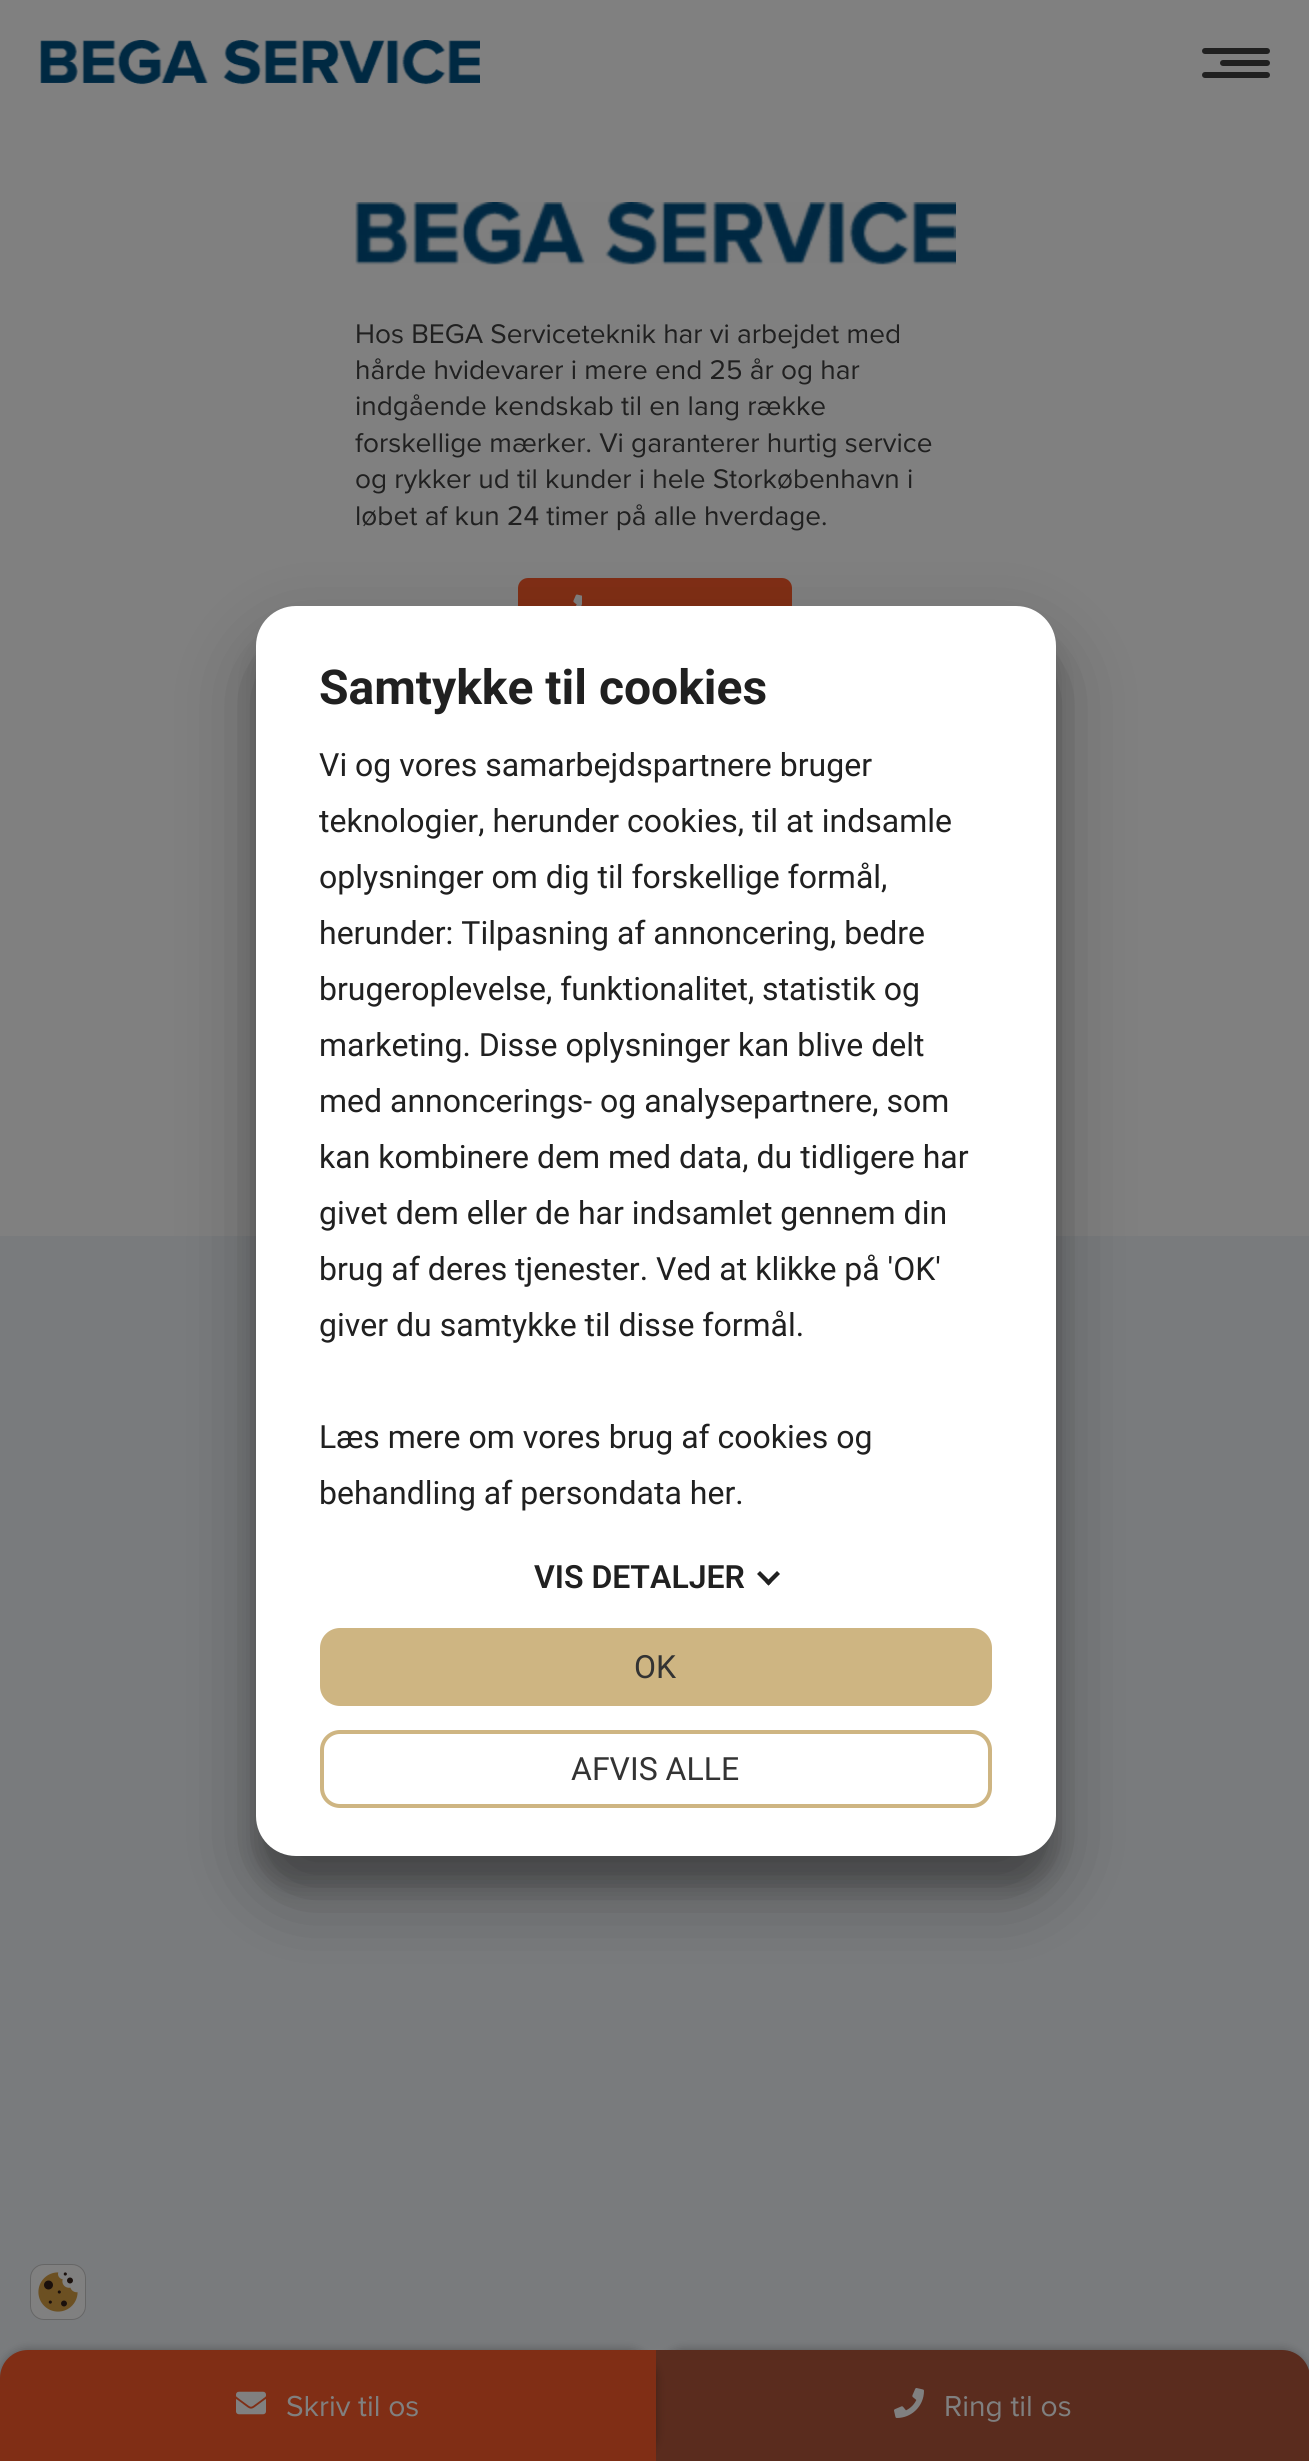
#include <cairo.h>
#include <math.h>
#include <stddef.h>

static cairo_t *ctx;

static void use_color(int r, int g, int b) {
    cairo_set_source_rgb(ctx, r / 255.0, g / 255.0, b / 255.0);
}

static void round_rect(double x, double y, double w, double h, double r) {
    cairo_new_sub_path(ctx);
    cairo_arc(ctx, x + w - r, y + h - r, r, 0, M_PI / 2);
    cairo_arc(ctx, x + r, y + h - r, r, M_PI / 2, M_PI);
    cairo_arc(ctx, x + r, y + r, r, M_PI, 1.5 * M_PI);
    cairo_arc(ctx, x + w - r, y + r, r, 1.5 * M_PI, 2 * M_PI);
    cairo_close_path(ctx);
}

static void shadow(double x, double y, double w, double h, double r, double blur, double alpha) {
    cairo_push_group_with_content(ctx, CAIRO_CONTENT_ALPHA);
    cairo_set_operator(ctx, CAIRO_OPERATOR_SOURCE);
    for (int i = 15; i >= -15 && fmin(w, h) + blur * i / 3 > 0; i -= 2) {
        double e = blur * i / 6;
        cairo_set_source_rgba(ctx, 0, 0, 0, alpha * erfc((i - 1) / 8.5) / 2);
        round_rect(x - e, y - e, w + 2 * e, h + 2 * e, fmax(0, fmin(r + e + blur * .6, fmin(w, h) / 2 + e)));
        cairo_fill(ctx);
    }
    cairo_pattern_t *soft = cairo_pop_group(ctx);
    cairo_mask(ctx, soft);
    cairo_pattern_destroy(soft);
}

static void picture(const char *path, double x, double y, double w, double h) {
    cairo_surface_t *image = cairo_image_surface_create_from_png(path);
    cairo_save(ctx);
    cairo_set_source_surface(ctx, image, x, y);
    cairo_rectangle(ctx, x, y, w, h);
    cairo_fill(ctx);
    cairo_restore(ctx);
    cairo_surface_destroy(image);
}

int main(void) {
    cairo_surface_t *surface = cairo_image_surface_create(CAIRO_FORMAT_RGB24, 1309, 2461);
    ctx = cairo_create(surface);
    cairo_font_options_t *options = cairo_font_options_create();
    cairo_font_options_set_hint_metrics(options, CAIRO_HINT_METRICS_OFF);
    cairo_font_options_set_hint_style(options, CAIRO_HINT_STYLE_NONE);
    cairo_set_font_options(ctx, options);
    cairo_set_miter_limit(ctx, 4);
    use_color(128, 128, 128);
    cairo_paint(ctx);
    picture("img1.png", 40, 40, 440, 45);
    use_color(32, 32, 32);
    round_rect(1202, 48, 68, 6, 3);
    cairo_fill(ctx);
    round_rect(1220, 60, 50, 6, 3);
    cairo_fill(ctx);
    round_rect(1202, 72, 68, 6, 3);
    cairo_fill(ctx);
    picture("img2.png", 355, 202, 601, 63);
    cairo_select_font_face(ctx, "Proxima Nova", CAIRO_FONT_SLANT_NORMAL, CAIRO_FONT_WEIGHT_NORMAL);
    cairo_set_font_size(ctx, 28);
    cairo_move_to(ctx, 355, 343);
    cairo_show_text(ctx, "Hos BEGA Serviceteknik har vi arbejdet med");
    cairo_move_to(ctx, 355, 379);
    cairo_show_text(ctx, "hårde hvidevarer i mere end 25 år og har");
    cairo_move_to(ctx, 355, 415);
    cairo_show_text(ctx, "indgående kendskab til en lang række");
    cairo_move_to(ctx, 355, 452);
    cairo_show_text(ctx, "forskellige mærker. Vi garanterer hurtig service");
    cairo_move_to(ctx, 355, 488);
    cairo_show_text(ctx, "og rykker ud til kunder i hele Storkøbenhavn i");
    cairo_move_to(ctx, 355, 525);
    cairo_show_text(ctx, "løbet af kun 24 timer på alle hverdage.");
    use_color(128, 46, 21);
    round_rect(518, 578, 274, 64, 10);
    cairo_fill(ctx);
    picture("img3.png", 573, 594, 9, 12);
    use_color(121, 123, 125);
    cairo_rectangle(ctx, 0, 1236, 1309, 1142);
    cairo_fill(ctx);
    use_color(0, 0, 0);
    shadow(256, 636, 800, 1250, 40, 12, 0.22);
    shadow(256, 644, 800, 1250, 40, 38, 0.3);
    use_color(255, 255, 255);
    round_rect(256, 606, 800, 1250, 40);
    cairo_fill(ctx);
    cairo_select_font_face(ctx, "Roboto", CAIRO_FONT_SLANT_NORMAL, CAIRO_FONT_WEIGHT_BOLD);
    cairo_set_font_size(ctx, 48);
    use_color(32, 32, 32);
    cairo_move_to(ctx, 319, 704);
    cairo_show_text(ctx, "Samtykke til cookies");
    cairo_select_font_face(ctx, "Roboto", CAIRO_FONT_SLANT_NORMAL, CAIRO_FONT_WEIGHT_NORMAL);
    cairo_set_font_size(ctx, 32);
    cairo_move_to(ctx, 319, 776);
    cairo_show_text(ctx, "Vi og vores samarbejdspartnere bruger");
    cairo_move_to(ctx, 319, 832);
    cairo_show_text(ctx, "teknologier, herunder cookies, til at indsamle");
    cairo_move_to(ctx, 319, 888);
    cairo_show_text(ctx, "oplysninger om dig til forskellige formål,");
    cairo_move_to(ctx, 319, 944);
    cairo_show_text(ctx, "herunder: Tilpasning af annoncering, bedre");
    cairo_move_to(ctx, 319, 1000);
    cairo_show_text(ctx, "brugeroplevelse, funktionalitet, statistik og");
    cairo_move_to(ctx, 319, 1056);
    cairo_show_text(ctx, "marketing. Disse oplysninger kan blive delt");
    cairo_move_to(ctx, 319, 1112);
    cairo_show_text(ctx, "med annoncerings- og analysepartnere, som");
    cairo_move_to(ctx, 319, 1168);
    cairo_show_text(ctx, "kan kombinere dem med data, du tidligere har");
    cairo_move_to(ctx, 319, 1224);
    cairo_show_text(ctx, "givet dem eller de har indsamlet gennem din");
    cairo_move_to(ctx, 319, 1280);
    cairo_show_text(ctx, "brug af deres tjenester. Ved at klikke på 'OK'");
    cairo_move_to(ctx, 319, 1336);
    cairo_show_text(ctx, "giver du samtykke til disse formål.");
    cairo_move_to(ctx, 319, 1448);
    cairo_show_text(ctx, "Læs mere om vores brug af cookies og");
    cairo_move_to(ctx, 319, 1504);
    cairo_show_text(ctx, "behandling af persondata her.");
    cairo_select_font_face(ctx, "Roboto SemiBold", CAIRO_FONT_SLANT_NORMAL, CAIRO_FONT_WEIGHT_NORMAL);
    cairo_move_to(ctx, 534, 1588);
    cairo_show_text(ctx, "VIS DETALJER");
    use_color(33, 33, 33);
    cairo_new_path(ctx);
    cairo_move_to(ctx, 777, 1571);
    cairo_line_to(ctx, 780, 1574);
    cairo_line_to(ctx, 768.5, 1585.5);
    cairo_line_to(ctx, 765.5, 1582.5);
    cairo_close_path(ctx);
    cairo_fill(ctx);
    cairo_new_path(ctx);
    cairo_move_to(ctx, 760, 1571);
    cairo_line_to(ctx, 771.5, 1582.5);
    cairo_line_to(ctx, 768.5, 1585.5);
    cairo_line_to(ctx, 757, 1574);
    cairo_close_path(ctx);
    cairo_fill(ctx);
    use_color(206, 181, 130);
    round_rect(322, 1630, 668, 74, 18);
    cairo_fill_preserve(ctx);
    cairo_set_line_width(ctx, 4);
    cairo_stroke(ctx);
    cairo_select_font_face(ctx, "Roboto", CAIRO_FONT_SLANT_NORMAL, CAIRO_FONT_WEIGHT_NORMAL);
    use_color(51, 51, 51);
    cairo_move_to(ctx, 634, 1678);
    cairo_show_text(ctx, "OK");
    round_rect(322, 1732, 668, 74, 18);
    use_color(206, 181, 130);
    cairo_stroke(ctx);
    use_color(51, 51, 51);
    cairo_move_to(ctx, 571, 1780);
    cairo_show_text(ctx, "AFVIS ALLE");
    use_color(128, 128, 128);
    round_rect(30.5, 2264.5, 55, 55, 13.5);
    cairo_fill_preserve(ctx);
    use_color(102, 102, 102);
    cairo_set_line_width(ctx, 1);
    cairo_stroke(ctx);
    picture("img4.png", 38, 2272, 40, 40);
    use_color(0, 0, 0);
    shadow(656, 2350, 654, 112, 28, 5, 0.3);
    use_color(90, 44, 30);
    cairo_new_path(ctx);
    cairo_move_to(ctx, 656, 2350);
    cairo_line_to(ctx, 1282, 2350);
    cairo_curve_to(ctx, 1297.5, 2350, 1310, 2362.5, 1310, 2378);
    cairo_line_to(ctx, 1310, 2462);
    cairo_line_to(ctx, 656, 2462);
    cairo_close_path(ctx);
    cairo_fill(ctx);
    use_color(0, 0, 0);
    shadow(0, 2350, 656, 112, 28, 5, 0.3);
    use_color(128, 46, 21);
    cairo_new_path(ctx);
    cairo_move_to(ctx, 28, 2350);
    cairo_line_to(ctx, 656, 2350);
    cairo_line_to(ctx, 656, 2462);
    cairo_line_to(ctx, 0, 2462);
    cairo_line_to(ctx, 0, 2378);
    cairo_curve_to(ctx, 0, 2362.5, 12.5, 2350, 28, 2350);
    cairo_close_path(ctx);
    cairo_fill(ctx);
    picture("img5.png", 236, 2391, 30, 24);
    cairo_select_font_face(ctx, "Proxima Nova", CAIRO_FONT_SLANT_NORMAL, CAIRO_FONT_WEIGHT_NORMAL);
    cairo_set_font_size(ctx, 30);
    use_color(128, 128, 128);
    cairo_move_to(ctx, 286, 2416);
    cairo_show_text(ctx, "Skriv til os");
    picture("img6.png", 894, 2388, 30, 30);
    cairo_move_to(ctx, 944, 2416);
    cairo_show_text(ctx, "Ring til os");
    cairo_surface_write_to_png(surface, "result.png");
    cairo_font_options_destroy(options);
    cairo_destroy(ctx);
    cairo_surface_destroy(surface);
    return 0;
}
